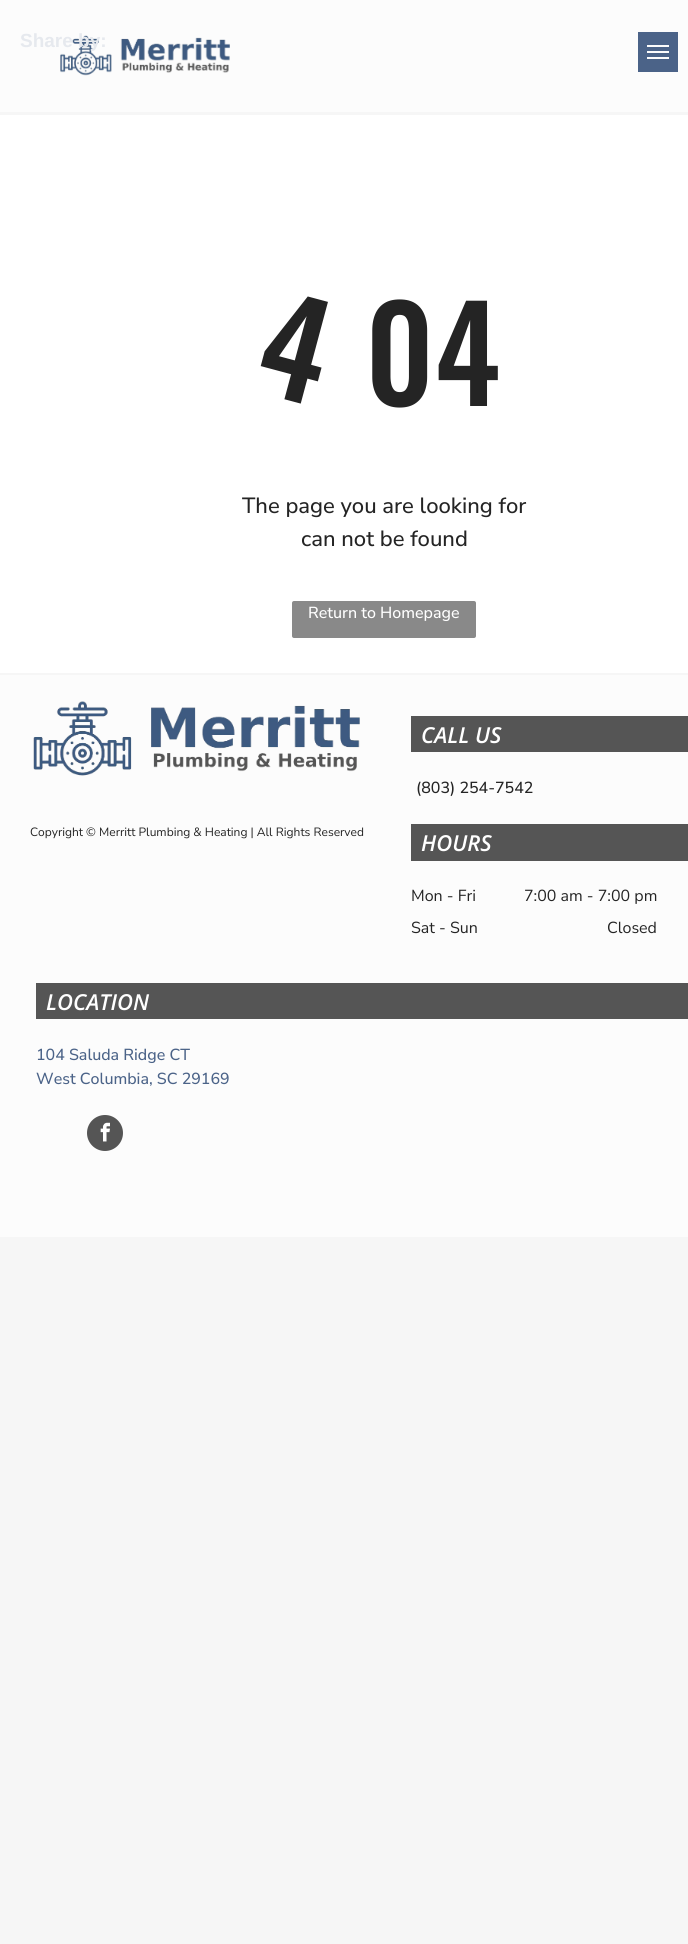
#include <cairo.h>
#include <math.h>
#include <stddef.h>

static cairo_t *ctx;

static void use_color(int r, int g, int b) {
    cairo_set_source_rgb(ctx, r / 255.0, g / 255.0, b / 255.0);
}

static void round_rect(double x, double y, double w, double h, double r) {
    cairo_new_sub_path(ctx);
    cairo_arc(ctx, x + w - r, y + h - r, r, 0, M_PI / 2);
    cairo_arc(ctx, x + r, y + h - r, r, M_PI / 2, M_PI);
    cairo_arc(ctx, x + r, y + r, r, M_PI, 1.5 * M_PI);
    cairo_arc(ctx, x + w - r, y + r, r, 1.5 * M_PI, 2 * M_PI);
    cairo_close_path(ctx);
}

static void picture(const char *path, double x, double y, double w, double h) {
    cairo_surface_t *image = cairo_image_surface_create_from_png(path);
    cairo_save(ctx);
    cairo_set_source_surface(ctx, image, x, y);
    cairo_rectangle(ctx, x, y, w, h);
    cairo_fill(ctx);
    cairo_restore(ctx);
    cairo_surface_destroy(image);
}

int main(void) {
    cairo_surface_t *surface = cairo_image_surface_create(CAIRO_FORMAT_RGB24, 688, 1944);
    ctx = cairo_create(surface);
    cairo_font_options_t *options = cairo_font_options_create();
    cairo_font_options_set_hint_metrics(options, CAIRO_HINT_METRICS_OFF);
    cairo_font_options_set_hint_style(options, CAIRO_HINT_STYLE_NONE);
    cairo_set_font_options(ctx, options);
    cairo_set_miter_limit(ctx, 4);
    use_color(246, 246, 246);
    cairo_paint(ctx);
    use_color(252, 252, 252);
    cairo_rectangle(ctx, 0, 0, 688, 112);
    cairo_fill(ctx);
    picture("img1.png", 60, 35, 170, 41);
    cairo_select_font_face(ctx, "Liberation Sans", CAIRO_FONT_SLANT_NORMAL, CAIRO_FONT_WEIGHT_BOLD);
    cairo_set_font_size(ctx, 19);
    use_color(230, 233, 238);
    cairo_move_to(ctx, 20, 47);
    cairo_show_text(ctx, "Share by:");
    use_color(75, 99, 136);
    cairo_rectangle(ctx, 638, 32, 40, 40);
    cairo_fill(ctx);
    use_color(252, 252, 252);
    cairo_rectangle(ctx, 647, 45, 22, 2);
    cairo_fill(ctx);
    cairo_rectangle(ctx, 647, 51, 22, 2);
    cairo_fill(ctx);
    cairo_rectangle(ctx, 647, 57, 22, 2);
    cairo_fill(ctx);
    use_color(255, 255, 255);
    cairo_rectangle(ctx, 0, 115, 688, 558);
    cairo_fill(ctx);
    cairo_select_font_face(ctx, "Oswald Medium", CAIRO_FONT_SLANT_NORMAL, CAIRO_FONT_WEIGHT_NORMAL);
    cairo_set_font_size(ctx, 130);
    use_color(36, 36, 36);
    cairo_save(ctx);
    cairo_translate(ctx, 250, 390);
    cairo_rotate(ctx, 15 * M_PI / 180);
    cairo_move_to(ctx, 0, 0);
    cairo_show_text(ctx, "4");
    cairo_restore(ctx);
    cairo_move_to(ctx, 365, 406);
    cairo_show_text(ctx, "04");
    cairo_select_font_face(ctx, "Nunito Sans Medium", CAIRO_FONT_SLANT_NORMAL, CAIRO_FONT_WEIGHT_NORMAL);
    cairo_set_font_size(ctx, 22);
    cairo_move_to(ctx, 242, 513);
    cairo_show_text(ctx, "The page you are looking for");
    cairo_move_to(ctx, 301, 546);
    cairo_show_text(ctx, "can not be found");
    use_color(137, 137, 137);
    round_rect(292, 601, 184, 37, 2);
    cairo_fill(ctx);
    cairo_set_font_size(ctx, 16);
    use_color(255, 255, 255);
    cairo_move_to(ctx, 308, 618);
    cairo_show_text(ctx, "Return to Homepage");
    use_color(252, 252, 252);
    cairo_rectangle(ctx, 0, 675, 688, 562);
    cairo_fill(ctx);
    picture("img2.png", 33, 701, 327, 75);
    cairo_select_font_face(ctx, "Nunito Sans", CAIRO_FONT_SLANT_NORMAL, CAIRO_FONT_WEIGHT_NORMAL);
    cairo_set_font_size(ctx, 12);
    use_color(36, 36, 36);
    cairo_move_to(ctx, 30, 836);
    cairo_show_text(ctx, "Copyright © Merritt Plumbing & Heating | All Rights Reserved");
    use_color(85, 85, 85);
    cairo_rectangle(ctx, 411, 716, 277, 36);
    cairo_fill(ctx);
    cairo_select_font_face(ctx, "Open Sans SemiBold", CAIRO_FONT_SLANT_ITALIC, CAIRO_FONT_WEIGHT_NORMAL);
    cairo_set_font_size(ctx, 22);
    use_color(255, 255, 255);
    cairo_move_to(ctx, 421, 743);
    cairo_show_text(ctx, "CALL US");
    cairo_select_font_face(ctx, "Nunito Sans Medium", CAIRO_FONT_SLANT_NORMAL, CAIRO_FONT_WEIGHT_NORMAL);
    cairo_set_font_size(ctx, 16);
    use_color(36, 36, 36);
    cairo_move_to(ctx, 416, 793);
    cairo_show_text(ctx, "(803) 254-7542");
    use_color(85, 85, 85);
    cairo_rectangle(ctx, 411, 824, 277, 37);
    cairo_fill(ctx);
    cairo_select_font_face(ctx, "Open Sans SemiBold", CAIRO_FONT_SLANT_ITALIC, CAIRO_FONT_WEIGHT_NORMAL);
    cairo_set_font_size(ctx, 22);
    use_color(255, 255, 255);
    cairo_move_to(ctx, 421, 851);
    cairo_show_text(ctx, "HOURS");
    cairo_select_font_face(ctx, "Nunito Sans", CAIRO_FONT_SLANT_NORMAL, CAIRO_FONT_WEIGHT_NORMAL);
    cairo_set_font_size(ctx, 16);
    use_color(36, 36, 36);
    cairo_move_to(ctx, 411, 901);
    cairo_show_text(ctx, "Mon - Fri");
    cairo_move_to(ctx, 524, 901);
    cairo_show_text(ctx, "7:00 am - 7:00 pm");
    cairo_move_to(ctx, 411, 933);
    cairo_show_text(ctx, "Sat - Sun");
    cairo_move_to(ctx, 607, 933);
    cairo_show_text(ctx, "Closed");
    use_color(85, 85, 85);
    cairo_rectangle(ctx, 36, 983, 652, 36);
    cairo_fill(ctx);
    cairo_select_font_face(ctx, "Open Sans SemiBold", CAIRO_FONT_SLANT_ITALIC, CAIRO_FONT_WEIGHT_NORMAL);
    cairo_set_font_size(ctx, 22);
    use_color(255, 255, 255);
    cairo_move_to(ctx, 46, 1010);
    cairo_show_text(ctx, "LOCATION");
    cairo_select_font_face(ctx, "Nunito Sans Medium", CAIRO_FONT_SLANT_NORMAL, CAIRO_FONT_WEIGHT_NORMAL);
    cairo_set_font_size(ctx, 16);
    use_color(75, 99, 136);
    cairo_move_to(ctx, 36, 1060);
    cairo_show_text(ctx, "104 Saluda Ridge CT");
    cairo_move_to(ctx, 36, 1084);
    cairo_show_text(ctx, "West Columbia, SC 29169");
    use_color(85, 85, 85);
    cairo_new_path(ctx);
    cairo_arc(ctx, 105, 1133, 18, 0, 2 * M_PI);
    cairo_fill(ctx);
    picture("img3.png", 100, 1122, 10, 20);
    cairo_surface_write_to_png(surface, "result.png");
    cairo_font_options_destroy(options);
    cairo_destroy(ctx);
    cairo_surface_destroy(surface);
    return 0;
}
